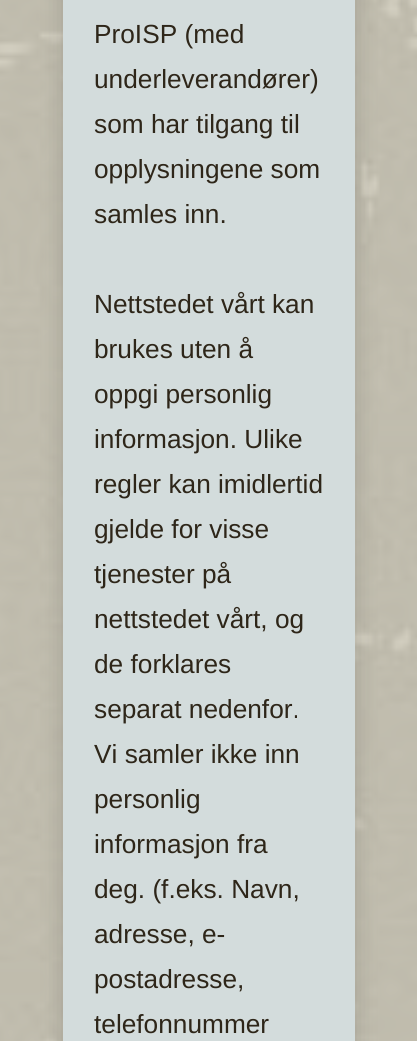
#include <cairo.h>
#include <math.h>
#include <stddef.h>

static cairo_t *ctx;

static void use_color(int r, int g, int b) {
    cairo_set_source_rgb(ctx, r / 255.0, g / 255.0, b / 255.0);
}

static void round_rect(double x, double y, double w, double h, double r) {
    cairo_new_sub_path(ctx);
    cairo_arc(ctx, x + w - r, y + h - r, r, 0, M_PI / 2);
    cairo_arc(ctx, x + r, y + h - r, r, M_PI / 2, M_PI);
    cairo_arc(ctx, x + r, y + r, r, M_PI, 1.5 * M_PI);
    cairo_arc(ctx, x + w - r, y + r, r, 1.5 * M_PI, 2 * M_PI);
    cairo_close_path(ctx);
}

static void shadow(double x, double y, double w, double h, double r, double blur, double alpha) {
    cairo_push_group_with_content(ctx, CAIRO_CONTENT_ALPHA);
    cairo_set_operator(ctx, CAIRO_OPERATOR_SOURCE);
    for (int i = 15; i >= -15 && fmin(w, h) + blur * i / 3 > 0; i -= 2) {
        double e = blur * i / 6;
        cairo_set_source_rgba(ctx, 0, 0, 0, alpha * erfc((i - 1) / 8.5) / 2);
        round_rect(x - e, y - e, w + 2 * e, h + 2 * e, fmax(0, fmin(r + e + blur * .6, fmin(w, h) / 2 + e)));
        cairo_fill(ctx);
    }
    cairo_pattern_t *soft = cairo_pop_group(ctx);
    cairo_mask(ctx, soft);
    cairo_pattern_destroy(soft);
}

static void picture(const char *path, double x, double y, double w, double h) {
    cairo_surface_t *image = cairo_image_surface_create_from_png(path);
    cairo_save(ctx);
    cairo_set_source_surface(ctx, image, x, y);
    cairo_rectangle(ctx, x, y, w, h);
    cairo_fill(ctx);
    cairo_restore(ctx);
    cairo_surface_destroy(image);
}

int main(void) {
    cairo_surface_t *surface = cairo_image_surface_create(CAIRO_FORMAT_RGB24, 417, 1041);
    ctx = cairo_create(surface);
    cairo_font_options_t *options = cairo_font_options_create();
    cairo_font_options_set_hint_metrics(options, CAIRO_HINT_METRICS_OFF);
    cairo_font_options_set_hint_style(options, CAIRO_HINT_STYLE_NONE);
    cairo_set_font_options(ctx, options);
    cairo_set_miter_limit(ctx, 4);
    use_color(255, 255, 255);
    cairo_paint(ctx);
    picture("img1.png", 0, 0, 417, 1041);
    use_color(0, 0, 0);
    shadow(63, -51, 292, 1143, 13, 12.5, 0.15);
    use_color(211, 220, 220);
    cairo_rectangle(ctx, 63, 0, 292, 1041);
    cairo_fill(ctx);
    cairo_select_font_face(ctx, "Liberation Sans", CAIRO_FONT_SLANT_NORMAL, CAIRO_FONT_WEIGHT_NORMAL);
    cairo_set_font_size(ctx, 26.25);
    use_color(46, 38, 25);
    cairo_move_to(ctx, 94, 43);
    cairo_show_text(ctx, "ProISP (med");
    cairo_move_to(ctx, 94, 88);
    cairo_show_text(ctx, "underleverandører)");
    cairo_move_to(ctx, 94, 133);
    cairo_show_text(ctx, "som har tilgang til");
    cairo_move_to(ctx, 94, 178);
    cairo_show_text(ctx, "opplysningene som");
    cairo_move_to(ctx, 94, 223);
    cairo_show_text(ctx, "samles inn.");
    cairo_move_to(ctx, 94, 313);
    cairo_show_text(ctx, "Nettstedet vårt kan");
    cairo_move_to(ctx, 94, 358);
    cairo_show_text(ctx, "brukes uten å");
    cairo_move_to(ctx, 94, 403);
    cairo_show_text(ctx, "oppgi personlig");
    cairo_move_to(ctx, 94, 448);
    cairo_show_text(ctx, "informasjon. Ulike");
    cairo_move_to(ctx, 94, 493);
    cairo_show_text(ctx, "regler kan imidlertid");
    cairo_move_to(ctx, 94, 538);
    cairo_show_text(ctx, "gjelde for visse");
    cairo_move_to(ctx, 94, 583);
    cairo_show_text(ctx, "tjenester på");
    cairo_move_to(ctx, 94, 628);
    cairo_show_text(ctx, "nettstedet vårt, og");
    cairo_move_to(ctx, 94, 673);
    cairo_show_text(ctx, "de forklares");
    cairo_move_to(ctx, 94, 718);
    cairo_show_text(ctx, "separat nedenfor.");
    cairo_move_to(ctx, 94, 763);
    cairo_show_text(ctx, "Vi samler ikke inn");
    cairo_move_to(ctx, 94, 808);
    cairo_show_text(ctx, "personlig");
    cairo_move_to(ctx, 94, 853);
    cairo_show_text(ctx, "informasjon fra");
    cairo_move_to(ctx, 94, 898);
    cairo_show_text(ctx, "deg. (f.eks. Navn,");
    cairo_move_to(ctx, 94, 943);
    cairo_show_text(ctx, "adresse, e-");
    cairo_move_to(ctx, 94, 988);
    cairo_show_text(ctx, "postadresse,");
    cairo_move_to(ctx, 94, 1033);
    cairo_show_text(ctx, "telefonnummer");
    cairo_surface_write_to_png(surface, "result.png");
    cairo_font_options_destroy(options);
    cairo_destroy(ctx);
    cairo_surface_destroy(surface);
    return 0;
}
